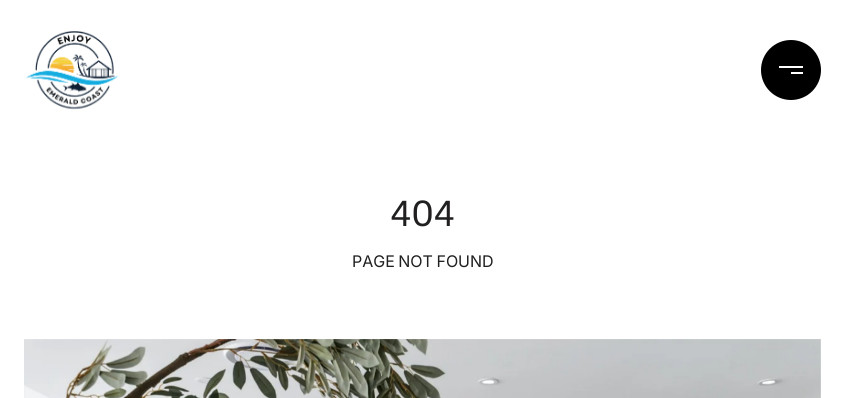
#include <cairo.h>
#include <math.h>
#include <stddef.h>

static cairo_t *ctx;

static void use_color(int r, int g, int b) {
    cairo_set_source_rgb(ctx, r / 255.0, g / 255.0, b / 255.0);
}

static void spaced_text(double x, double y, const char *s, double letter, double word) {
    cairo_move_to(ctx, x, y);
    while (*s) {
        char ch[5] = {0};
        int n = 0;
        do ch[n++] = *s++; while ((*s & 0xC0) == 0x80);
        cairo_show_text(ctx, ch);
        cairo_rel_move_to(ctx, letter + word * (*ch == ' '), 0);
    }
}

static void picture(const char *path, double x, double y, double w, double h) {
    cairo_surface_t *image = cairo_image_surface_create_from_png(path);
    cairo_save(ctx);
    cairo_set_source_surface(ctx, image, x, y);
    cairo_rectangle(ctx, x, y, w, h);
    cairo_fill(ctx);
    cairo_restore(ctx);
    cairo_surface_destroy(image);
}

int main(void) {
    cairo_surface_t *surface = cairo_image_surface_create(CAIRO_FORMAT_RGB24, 845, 398);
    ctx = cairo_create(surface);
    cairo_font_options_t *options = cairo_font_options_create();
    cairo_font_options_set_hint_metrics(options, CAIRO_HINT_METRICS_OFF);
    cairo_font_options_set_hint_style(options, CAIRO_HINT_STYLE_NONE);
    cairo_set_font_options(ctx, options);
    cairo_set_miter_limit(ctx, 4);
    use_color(255, 255, 255);
    cairo_paint(ctx);
    picture("img1.png", 25, 31, 94, 79);
    use_color(0, 0, 0);
    cairo_arc(ctx, 791, 70, 30, 0, 2 * M_PI);
    cairo_fill(ctx);
    use_color(255, 255, 255);
    cairo_rectangle(ctx, 779, 66, 24, 2);
    cairo_fill(ctx);
    cairo_rectangle(ctx, 791, 72, 12, 2);
    cairo_fill(ctx);
    cairo_select_font_face(ctx, "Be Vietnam", CAIRO_FONT_SLANT_NORMAL, CAIRO_FONT_WEIGHT_NORMAL);
    cairo_set_font_size(ctx, 36);
    use_color(33, 31, 31);
    cairo_move_to(ctx, 390, 226);
    cairo_show_text(ctx, "404");
    cairo_select_font_face(ctx, "Inter", CAIRO_FONT_SLANT_NORMAL, CAIRO_FONT_WEIGHT_NORMAL);
    cairo_set_font_size(ctx, 16);
    spaced_text(352, 267, "PAGE NOT FOUND", 0, -1);
    picture("img2.png", 24, 339, 797, 59);
    cairo_surface_write_to_png(surface, "result.png");
    cairo_font_options_destroy(options);
    cairo_destroy(ctx);
    cairo_surface_destroy(surface);
    return 0;
}
